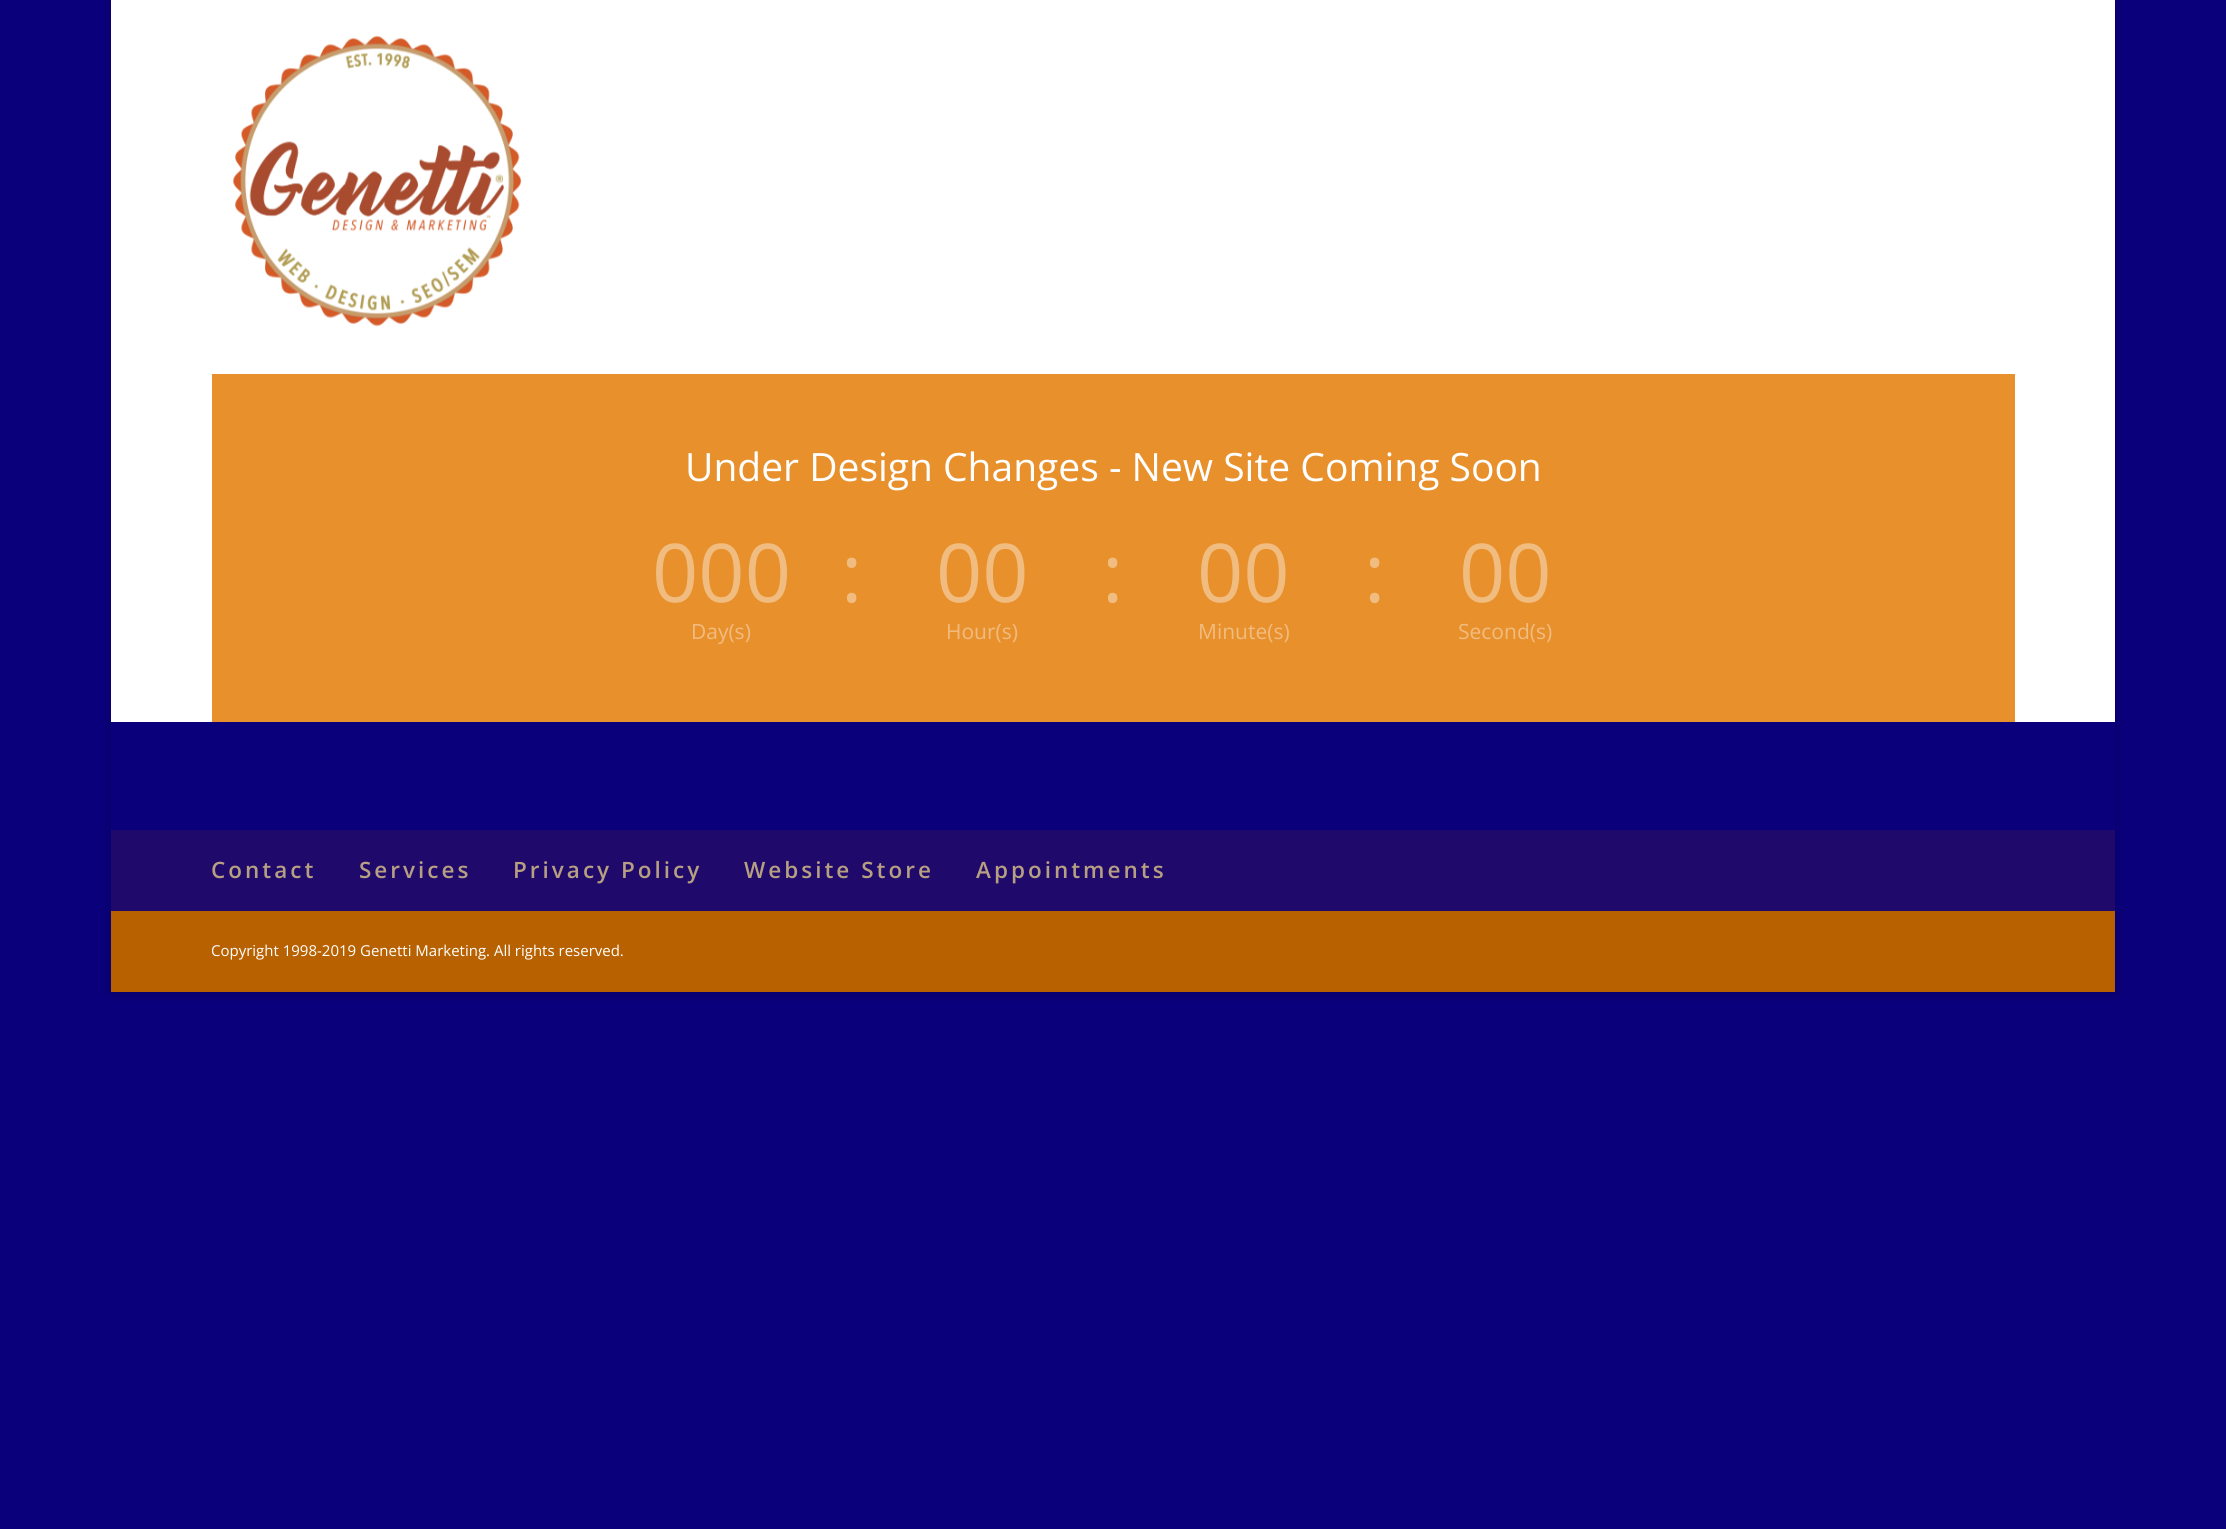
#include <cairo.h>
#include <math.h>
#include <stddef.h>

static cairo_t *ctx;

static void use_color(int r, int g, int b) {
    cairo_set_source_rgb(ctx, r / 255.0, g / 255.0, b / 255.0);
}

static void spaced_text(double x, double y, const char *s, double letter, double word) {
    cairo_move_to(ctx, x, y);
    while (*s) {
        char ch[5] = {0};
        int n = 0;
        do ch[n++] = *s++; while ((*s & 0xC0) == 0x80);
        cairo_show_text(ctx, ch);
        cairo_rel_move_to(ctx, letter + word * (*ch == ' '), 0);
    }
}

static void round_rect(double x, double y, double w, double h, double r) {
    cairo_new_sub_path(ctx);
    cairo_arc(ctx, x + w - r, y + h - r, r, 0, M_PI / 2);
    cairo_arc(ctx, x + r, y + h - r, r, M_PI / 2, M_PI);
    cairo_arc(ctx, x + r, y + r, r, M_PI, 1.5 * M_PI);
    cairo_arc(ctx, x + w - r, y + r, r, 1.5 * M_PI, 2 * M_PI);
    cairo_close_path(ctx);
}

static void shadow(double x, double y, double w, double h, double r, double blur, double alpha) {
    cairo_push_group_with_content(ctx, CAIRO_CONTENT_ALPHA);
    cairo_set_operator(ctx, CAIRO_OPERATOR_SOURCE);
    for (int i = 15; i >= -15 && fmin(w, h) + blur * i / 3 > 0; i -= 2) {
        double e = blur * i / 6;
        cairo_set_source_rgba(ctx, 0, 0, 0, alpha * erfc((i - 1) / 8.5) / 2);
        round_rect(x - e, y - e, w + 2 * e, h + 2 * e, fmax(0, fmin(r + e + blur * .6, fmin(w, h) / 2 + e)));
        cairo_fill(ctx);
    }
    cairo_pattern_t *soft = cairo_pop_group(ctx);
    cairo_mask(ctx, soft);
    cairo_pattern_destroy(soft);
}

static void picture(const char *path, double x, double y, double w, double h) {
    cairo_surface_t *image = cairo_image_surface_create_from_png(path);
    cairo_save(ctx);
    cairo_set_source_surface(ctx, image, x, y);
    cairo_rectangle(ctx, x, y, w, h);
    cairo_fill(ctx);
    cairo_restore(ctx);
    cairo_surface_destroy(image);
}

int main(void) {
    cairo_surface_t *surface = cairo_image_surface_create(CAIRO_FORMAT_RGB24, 2226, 1529);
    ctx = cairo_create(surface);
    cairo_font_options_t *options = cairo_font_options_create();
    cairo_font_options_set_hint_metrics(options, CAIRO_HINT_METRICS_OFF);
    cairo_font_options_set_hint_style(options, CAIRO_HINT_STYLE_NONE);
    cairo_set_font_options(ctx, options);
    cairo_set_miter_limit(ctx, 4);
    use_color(10, 0, 124);
    cairo_paint(ctx);
    cairo_save(ctx);
    cairo_set_fill_rule(ctx, CAIRO_FILL_RULE_EVEN_ODD);
    cairo_new_path(ctx);
    cairo_move_to(ctx, 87, 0);
    cairo_line_to(ctx, 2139, 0);
    cairo_line_to(ctx, 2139, 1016);
    cairo_line_to(ctx, 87, 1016);
    cairo_close_path(ctx);
    cairo_move_to(ctx, 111, 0);
    cairo_line_to(ctx, 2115, 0);
    cairo_line_to(ctx, 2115, 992);
    cairo_line_to(ctx, 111, 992);
    cairo_close_path(ctx);
    cairo_clip(ctx);
    use_color(0, 0, 0);
    shadow(111, 0, 2004, 992, 0, 7.5, 0.2);
    cairo_restore(ctx);
    use_color(255, 255, 255);
    cairo_rectangle(ctx, 111, 0, 2004, 722);
    cairo_fill(ctx);
    picture("img1.png", 232, 35, 290, 292);
    use_color(232, 144, 44);
    cairo_rectangle(ctx, 212, 374, 1803, 348);
    cairo_fill(ctx);
    cairo_select_font_face(ctx, "Open Sans", CAIRO_FONT_SLANT_NORMAL, CAIRO_FONT_WEIGHT_NORMAL);
    cairo_set_font_size(ctx, 39);
    use_color(255, 255, 255);
    cairo_move_to(ctx, 685, 481);
    cairo_show_text(ctx, "Under Design Changes - New Site Coming Soon");
    cairo_set_font_size(ctx, 81);
    use_color(241, 188, 128);
    cairo_move_to(ctx, 652, 602);
    cairo_show_text(ctx, "000");
    cairo_set_font_size(ctx, 21);
    cairo_move_to(ctx, 691, 639);
    cairo_show_text(ctx, "Day(s)");
    cairo_set_font_size(ctx, 81);
    cairo_move_to(ctx, 841, 602);
    cairo_show_text(ctx, ":");
    cairo_move_to(ctx, 936, 602);
    cairo_show_text(ctx, "00");
    cairo_set_font_size(ctx, 21);
    cairo_move_to(ctx, 946, 639);
    cairo_show_text(ctx, "Hour(s)");
    cairo_set_font_size(ctx, 81);
    cairo_move_to(ctx, 1102, 602);
    cairo_show_text(ctx, ":");
    cairo_move_to(ctx, 1197, 602);
    cairo_show_text(ctx, "00");
    cairo_set_font_size(ctx, 21);
    cairo_move_to(ctx, 1198, 639);
    cairo_show_text(ctx, "Minute(s)");
    cairo_set_font_size(ctx, 81);
    cairo_move_to(ctx, 1364, 602);
    cairo_show_text(ctx, ":");
    cairo_move_to(ctx, 1459, 602);
    cairo_show_text(ctx, "00");
    cairo_set_font_size(ctx, 21);
    cairo_move_to(ctx, 1458, 639);
    cairo_show_text(ctx, "Second(s)");
    use_color(31, 10, 107);
    cairo_rectangle(ctx, 111, 830, 2004, 81);
    cairo_fill(ctx);
    cairo_select_font_face(ctx, "Open Sans SemiBold", CAIRO_FONT_SLANT_NORMAL, CAIRO_FONT_WEIGHT_NORMAL);
    cairo_set_font_size(ctx, 22.5);
    use_color(183, 159, 130);
    spaced_text(211, 878, "Contact", 3, 0);
    spaced_text(359, 878, "Services", 3, 0);
    spaced_text(513, 878, "Privacy Policy", 3, 0);
    spaced_text(744, 878, "Website Store", 3, 0);
    spaced_text(976, 878, "Appointments", 3, 0);
    use_color(183, 97, 0);
    cairo_rectangle(ctx, 111, 911, 2004, 81);
    cairo_fill(ctx);
    cairo_select_font_face(ctx, "Open Sans", CAIRO_FONT_SLANT_NORMAL, CAIRO_FONT_WEIGHT_NORMAL);
    cairo_set_font_size(ctx, 15);
    use_color(255, 255, 255);
    cairo_move_to(ctx, 211, 956);
    cairo_show_text(ctx, "Copyright 1998-2019 Genetti Marketing. All rights reserved.");
    cairo_surface_write_to_png(surface, "result.png");
    cairo_font_options_destroy(options);
    cairo_destroy(ctx);
    cairo_surface_destroy(surface);
    return 0;
}
